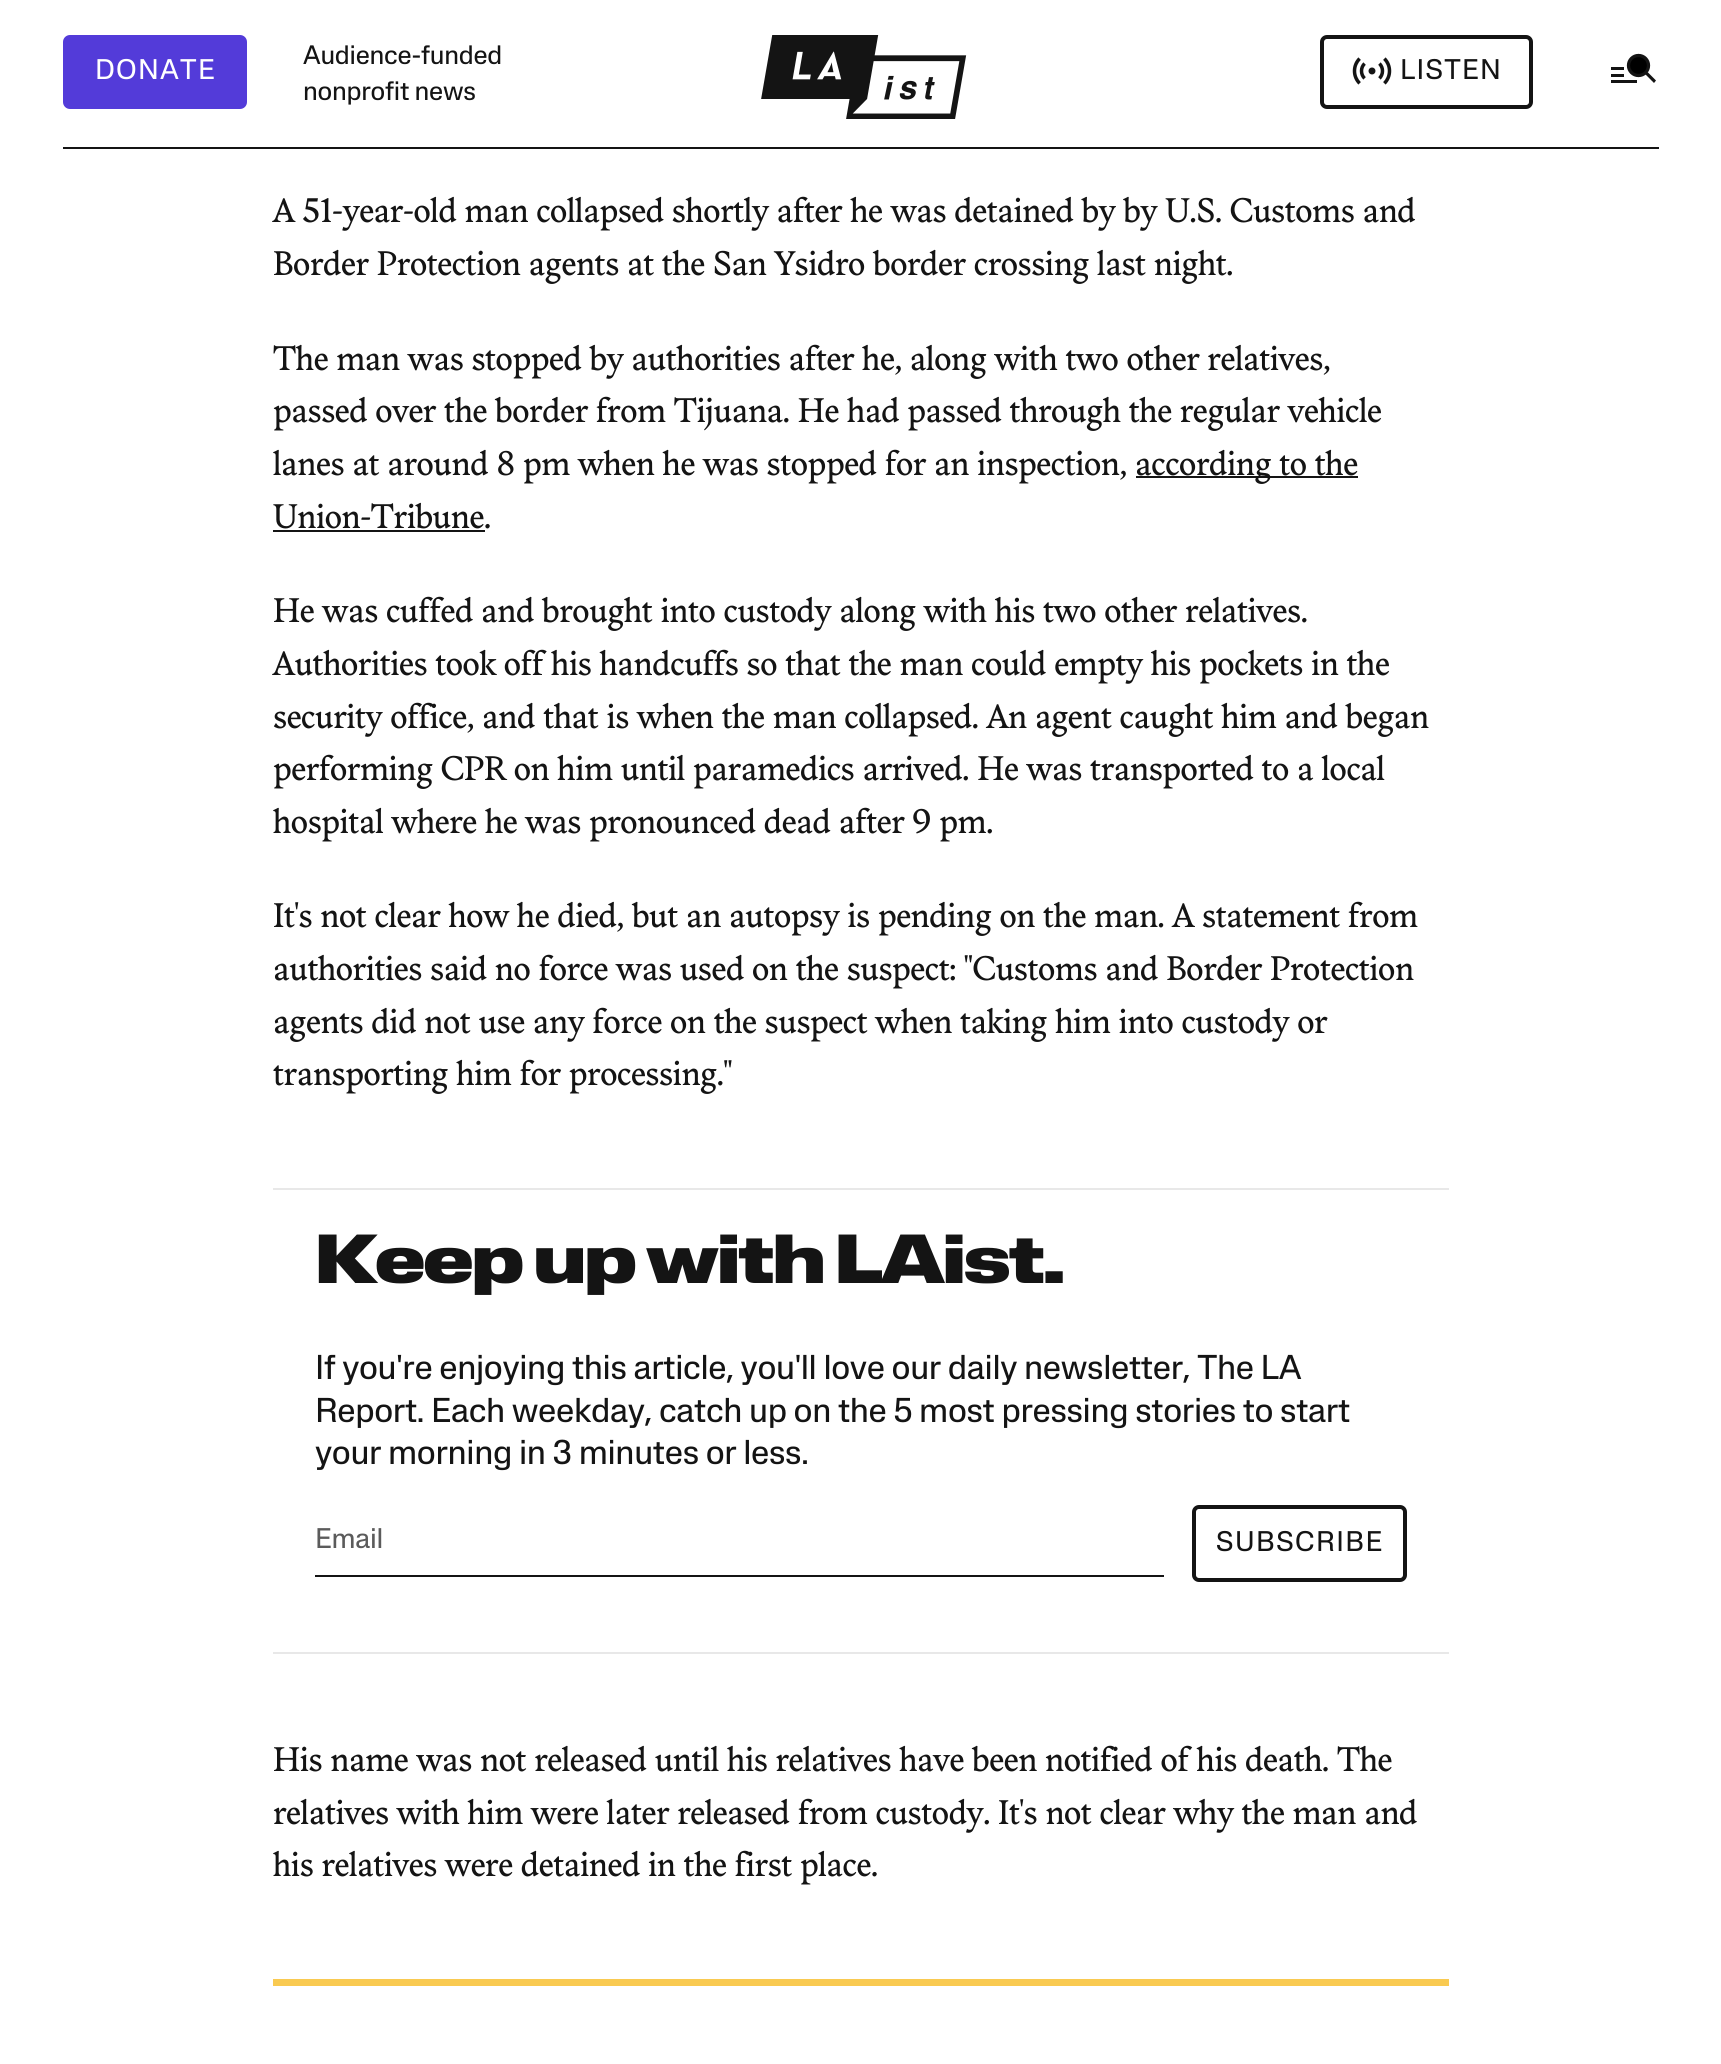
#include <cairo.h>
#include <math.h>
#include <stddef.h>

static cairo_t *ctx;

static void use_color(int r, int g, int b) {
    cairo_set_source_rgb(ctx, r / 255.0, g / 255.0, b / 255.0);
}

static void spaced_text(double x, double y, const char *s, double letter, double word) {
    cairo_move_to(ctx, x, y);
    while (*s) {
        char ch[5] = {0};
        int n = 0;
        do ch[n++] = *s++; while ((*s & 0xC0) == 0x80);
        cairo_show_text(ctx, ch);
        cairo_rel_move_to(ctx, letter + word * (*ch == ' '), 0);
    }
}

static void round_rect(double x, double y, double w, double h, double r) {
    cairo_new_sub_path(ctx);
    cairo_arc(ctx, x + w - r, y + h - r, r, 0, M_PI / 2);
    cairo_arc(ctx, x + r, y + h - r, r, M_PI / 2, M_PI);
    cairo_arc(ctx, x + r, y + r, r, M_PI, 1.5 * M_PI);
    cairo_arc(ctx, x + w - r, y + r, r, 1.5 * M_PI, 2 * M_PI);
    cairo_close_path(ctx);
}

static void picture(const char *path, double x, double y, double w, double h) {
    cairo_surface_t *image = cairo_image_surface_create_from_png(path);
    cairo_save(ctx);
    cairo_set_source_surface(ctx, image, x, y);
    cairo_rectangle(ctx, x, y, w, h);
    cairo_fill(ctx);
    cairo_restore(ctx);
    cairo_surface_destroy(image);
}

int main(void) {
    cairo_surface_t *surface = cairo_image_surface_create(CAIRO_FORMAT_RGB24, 1721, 2064);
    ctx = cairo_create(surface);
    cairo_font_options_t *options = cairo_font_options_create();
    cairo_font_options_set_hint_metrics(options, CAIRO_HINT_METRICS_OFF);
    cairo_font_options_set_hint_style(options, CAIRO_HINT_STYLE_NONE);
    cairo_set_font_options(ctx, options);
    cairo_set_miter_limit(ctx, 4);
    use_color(255, 255, 255);
    cairo_paint(ctx);
    use_color(20, 20, 20);
    cairo_rectangle(ctx, 63, 147, 1596, 2);
    cairo_fill(ctx);
    use_color(83, 59, 217);
    round_rect(65, 37, 180, 70, 5);
    cairo_fill_preserve(ctx);
    cairo_set_line_width(ctx, 4);
    cairo_stroke(ctx);
    cairo_select_font_face(ctx, "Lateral", CAIRO_FONT_SLANT_NORMAL, CAIRO_FONT_WEIGHT_NORMAL);
    cairo_set_font_size(ctx, 28);
    use_color(255, 255, 255);
    spaced_text(95, 79, "DONATE", 1.25, 0);
    cairo_set_font_size(ctx, 26.25);
    use_color(20, 20, 20);
    spaced_text(303, 64, "Audience-funded", -0.25, 0);
    spaced_text(303, 100, "nonprofit news", -0.25, 0);
    picture("img1.png", 761, 35, 206, 84);
    round_rect(1322, 37, 209, 70, 5);
    cairo_stroke(ctx);
    picture("img2.png", 1352, 57, 40, 28);
    cairo_set_font_size(ctx, 28);
    spaced_text(1400, 79, "LISTEN", 1.25, 0);
    cairo_rectangle(ctx, 1611, 67, 13, 3);
    cairo_fill(ctx);
    cairo_rectangle(ctx, 1611, 74, 13, 3);
    cairo_fill(ctx);
    cairo_rectangle(ctx, 1611, 80, 26, 3);
    cairo_fill(ctx);
    cairo_new_path(ctx);
    cairo_move_to(ctx, 1647.5, 72);
    cairo_line_to(ctx, 1656, 80.5);
    cairo_line_to(ctx, 1654, 83);
    cairo_line_to(ctx, 1645, 74);
    cairo_close_path(ctx);
    cairo_fill(ctx);
    use_color(0, 0, 0);
    cairo_arc(ctx, 1638.5, 65.5, 10, 0, 2 * M_PI);
    cairo_fill_preserve(ctx);
    use_color(20, 20, 20);
    cairo_set_line_width(ctx, 3.3);
    cairo_stroke(ctx);
    cairo_select_font_face(ctx, "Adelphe", CAIRO_FONT_SLANT_NORMAL, CAIRO_FONT_WEIGHT_NORMAL);
    cairo_set_font_size(ctx, 33.95);
    spaced_text(273, 222, "A 51-year-old man collapsed shortly after he was detained by by U.S. Customs and", -0.35, 0);
    spaced_text(273, 275, "Border Protection agents at the San Ysidro border crossing last night.", -0.35, 0);
    spaced_text(273, 370, "The man was stopped by authorities after he, along with two other relatives,", -0.35, 0);
    spaced_text(273, 422, "passed over the border from Tijuana. He had passed through the regular vehicle", -0.35, 0);
    spaced_text(273, 475, "lanes at around 8 pm when he was stopped for an inspection,", -0.35, 0);
    cairo_rectangle(ctx, 1136, 476, 222, 2);
    cairo_fill(ctx);
    spaced_text(1135, 475, "according to the", -0.35, 0);
    spaced_text(273, 528, "Union-Tribune.", -0.35, 0);
    cairo_rectangle(ctx, 273, 530, 212, 2);
    cairo_fill(ctx);
    spaced_text(273, 622, "He was cuffed and brought into custody along with his two other relatives.", -0.35, 0);
    spaced_text(273, 675, "Authorities took off his handcuffs so that the man could empty his pockets in the", -0.35, 0);
    spaced_text(273, 728, "security office, and that is when the man collapsed. An agent caught him and began", -0.35, 0);
    spaced_text(273, 780, "performing CPR on him until paramedics arrived. He was transported to a local", -0.35, 0);
    spaced_text(273, 833, "hospital where he was pronounced dead after 9 pm.", -0.35, 0);
    spaced_text(273, 927, "It's not clear how he died, but an autopsy is pending on the man. A statement from", -0.35, 0);
    spaced_text(273, 980, "authorities said no force was used on the suspect: \"Customs and Border Protection", -0.35, 0);
    spaced_text(273, 1033, "agents did not use any force on the suspect when taking him into custody or", -0.35, 0);
    spaced_text(273, 1085, "transporting him for processing.\"", -0.35, 0);
    use_color(232, 232, 232);
    cairo_rectangle(ctx, 273, 1188, 1176, 2);
    cairo_fill(ctx);
    cairo_rectangle(ctx, 273, 1652, 1176, 2);
    cairo_fill(ctx);
    cairo_select_font_face(ctx, "Lateral Black", CAIRO_FONT_SLANT_NORMAL, CAIRO_FONT_WEIGHT_NORMAL);
    cairo_set_font_size(ctx, 68.25);
    use_color(20, 20, 20);
    spaced_text(315, 1283, "Keep up with LAist.", -2, 0);
    cairo_select_font_face(ctx, "Lateral", CAIRO_FONT_SLANT_NORMAL, CAIRO_FONT_WEIGHT_NORMAL);
    cairo_set_font_size(ctx, 33.95);
    spaced_text(315, 1379, "If you're enjoying this article, you'll love our daily newsletter, The LA", -0.35, 0);
    spaced_text(315, 1422, "Report. Each weekday, catch up on the 5 most pressing stories to start", -0.35, 0);
    spaced_text(315, 1464, "your morning in 3 minutes or less.", -0.35, 0);
    cairo_rectangle(ctx, 315, 1575, 849, 2);
    cairo_fill(ctx);
    cairo_set_font_size(ctx, 28);
    use_color(91, 91, 91);
    spaced_text(315, 1548, "Email", -0.25, 0);
    round_rect(1194, 1507, 211, 73, 5);
    use_color(20, 20, 20);
    cairo_set_line_width(ctx, 4);
    cairo_stroke(ctx);
    spaced_text(1216, 1551, "SUBSCRIBE", 1.5, 0);
    cairo_select_font_face(ctx, "Adelphe", CAIRO_FONT_SLANT_NORMAL, CAIRO_FONT_WEIGHT_NORMAL);
    cairo_set_font_size(ctx, 33.95);
    spaced_text(273, 1771, "His name was not released until his relatives have been notified of his death. The", -0.35, 0);
    spaced_text(273, 1824, "relatives with him were later released from custody. It's not clear why the man and", -0.35, 0);
    spaced_text(273, 1876, "his relatives were detained in the first place.", -0.35, 0);
    use_color(249, 202, 81);
    cairo_rectangle(ctx, 273, 1979, 1176, 7);
    cairo_fill(ctx);
    cairo_surface_write_to_png(surface, "result.png");
    cairo_font_options_destroy(options);
    cairo_destroy(ctx);
    cairo_surface_destroy(surface);
    return 0;
}
